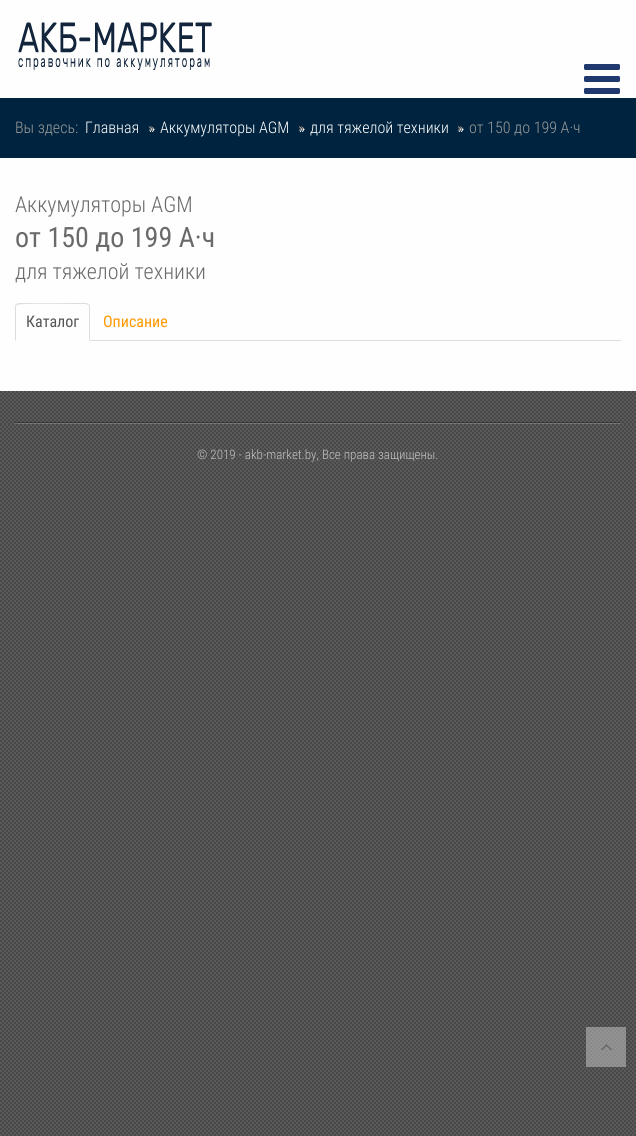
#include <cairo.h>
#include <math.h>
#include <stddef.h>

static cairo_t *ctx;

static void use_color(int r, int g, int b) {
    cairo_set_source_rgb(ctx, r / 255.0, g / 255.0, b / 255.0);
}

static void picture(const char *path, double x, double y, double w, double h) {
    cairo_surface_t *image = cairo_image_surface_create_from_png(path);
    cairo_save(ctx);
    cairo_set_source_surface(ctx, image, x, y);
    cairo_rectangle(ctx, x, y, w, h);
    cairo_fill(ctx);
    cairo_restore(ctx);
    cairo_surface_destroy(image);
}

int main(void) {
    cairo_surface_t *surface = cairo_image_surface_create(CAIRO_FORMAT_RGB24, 636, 1136);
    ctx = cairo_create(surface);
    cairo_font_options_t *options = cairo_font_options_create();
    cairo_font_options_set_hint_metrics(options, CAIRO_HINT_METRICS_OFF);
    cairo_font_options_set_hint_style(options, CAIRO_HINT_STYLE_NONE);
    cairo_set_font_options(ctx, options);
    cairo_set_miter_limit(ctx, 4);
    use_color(76, 77, 76);
    cairo_paint(ctx);
    picture("img1.png", 0, 527, 636, 609);
    use_color(254, 254, 254);
    cairo_rectangle(ctx, 0, 0, 636, 391);
    cairo_fill(ctx);
    picture("img2.png", 18, 22, 194, 48);
    picture("img3.png", 584, 64, 36, 30);
    use_color(0, 36, 63);
    cairo_rectangle(ctx, 0, 98, 636, 60);
    cairo_fill(ctx);
    cairo_select_font_face(ctx, "Roboto Condensed Light", CAIRO_FONT_SLANT_NORMAL, CAIRO_FONT_WEIGHT_NORMAL);
    cairo_set_font_size(ctx, 16);
    use_color(153, 153, 153);
    cairo_move_to(ctx, 15, 133);
    cairo_show_text(ctx, "Вы здесь:");
    use_color(255, 255, 255);
    cairo_move_to(ctx, 85, 133);
    cairo_show_text(ctx, "Главная");
    picture("img4.png", 148, 126, 7, 6);
    cairo_move_to(ctx, 160, 133);
    cairo_show_text(ctx, "Аккумуляторы AGM");
    picture("img4.png", 298, 126, 7, 6);
    cairo_move_to(ctx, 310, 133);
    cairo_show_text(ctx, "для тяжелой техники");
    picture("img4.png", 457, 126, 7, 6);
    use_color(153, 153, 153);
    cairo_move_to(ctx, 469, 133);
    cairo_show_text(ctx, "от 150 до 199 А·ч");
    cairo_set_font_size(ctx, 22);
    use_color(106, 106, 106);
    cairo_move_to(ctx, 15, 212);
    cairo_show_text(ctx, "Аккумуляторы AGM");
    cairo_select_font_face(ctx, "Roboto Condensed", CAIRO_FONT_SLANT_NORMAL, CAIRO_FONT_WEIGHT_NORMAL);
    cairo_set_font_size(ctx, 28);
    cairo_move_to(ctx, 15, 247);
    cairo_show_text(ctx, "от 150 до 199 А·ч");
    cairo_select_font_face(ctx, "Roboto Condensed Light", CAIRO_FONT_SLANT_NORMAL, CAIRO_FONT_WEIGHT_NORMAL);
    cairo_set_font_size(ctx, 22);
    cairo_move_to(ctx, 15, 279);
    cairo_show_text(ctx, "для тяжелой техники");
    use_color(221, 221, 221);
    cairo_rectangle(ctx, 90, 340, 531, 1);
    cairo_fill(ctx);
    cairo_new_path(ctx);
    cairo_move_to(ctx, 19, 303);
    cairo_line_to(ctx, 16, 304);
    cairo_line_to(ctx, 17, 305);
    cairo_curve_to(ctx, 19, 303, 68, 304, 75, 304);
    cairo_line_to(ctx, 86, 304);
    cairo_line_to(ctx, 88, 305);
    cairo_line_to(ctx, 89, 304);
    cairo_line_to(ctx, 86, 303);
    cairo_close_path(ctx);
    cairo_fill(ctx);
    cairo_new_path(ctx);
    cairo_move_to(ctx, 90, 341);
    cairo_line_to(ctx, 90, 307);
    cairo_curve_to(ctx, 90, 306, 89.5, 305, 89, 304);
    cairo_line_to(ctx, 88, 305);
    cairo_curve_to(ctx, 89, 305, 89, 306, 89, 307);
    cairo_line_to(ctx, 89, 340);
    cairo_close_path(ctx);
    cairo_fill(ctx);
    cairo_new_path(ctx);
    cairo_move_to(ctx, 15, 341);
    cairo_line_to(ctx, 16, 340);
    cairo_line_to(ctx, 16, 307);
    cairo_curve_to(ctx, 16, 306, 16, 305, 17, 305);
    cairo_line_to(ctx, 16, 304);
    cairo_curve_to(ctx, 15.5, 305, 15, 306, 15, 307);
    cairo_close_path(ctx);
    cairo_fill(ctx);
    cairo_select_font_face(ctx, "Roboto Condensed", CAIRO_FONT_SLANT_NORMAL, CAIRO_FONT_WEIGHT_NORMAL);
    cairo_set_font_size(ctx, 16);
    use_color(85, 85, 85);
    cairo_move_to(ctx, 26, 327);
    cairo_show_text(ctx, "Каталог");
    use_color(255, 153, 0);
    cairo_move_to(ctx, 103, 327);
    cairo_show_text(ctx, "Описание");
    picture("img5.png", 0, 391, 636, 33);
    cairo_set_source_rgba(ctx, 1, 1, 1, 0.2);
    cairo_rectangle(ctx, 15, 423, 606, 1);
    cairo_fill(ctx);
    cairo_set_source_rgba(ctx, 0, 0, 0, 0.3);
    cairo_rectangle(ctx, 15, 422, 606, 1);
    cairo_fill(ctx);
    picture("img6.png", 0, 424, 636, 103);
    cairo_select_font_face(ctx, "Roboto Condensed Light", CAIRO_FONT_SLANT_NORMAL, CAIRO_FONT_WEIGHT_NORMAL);
    cairo_set_font_size(ctx, 13);
    use_color(194, 194, 194);
    cairo_move_to(ctx, 197, 459);
    cairo_show_text(ctx, "© 2019 - akb-market.by, Все права защищены.");
    cairo_set_source_rgba(ctx, 0.8, 0.8, 0.8, 0.5);
    cairo_rectangle(ctx, 586, 1027, 40, 40);
    cairo_fill(ctx);
    picture("img7.png", 601, 1044, 11, 6);
    cairo_surface_write_to_png(surface, "result.png");
    cairo_font_options_destroy(options);
    cairo_destroy(ctx);
    cairo_surface_destroy(surface);
    return 0;
}
